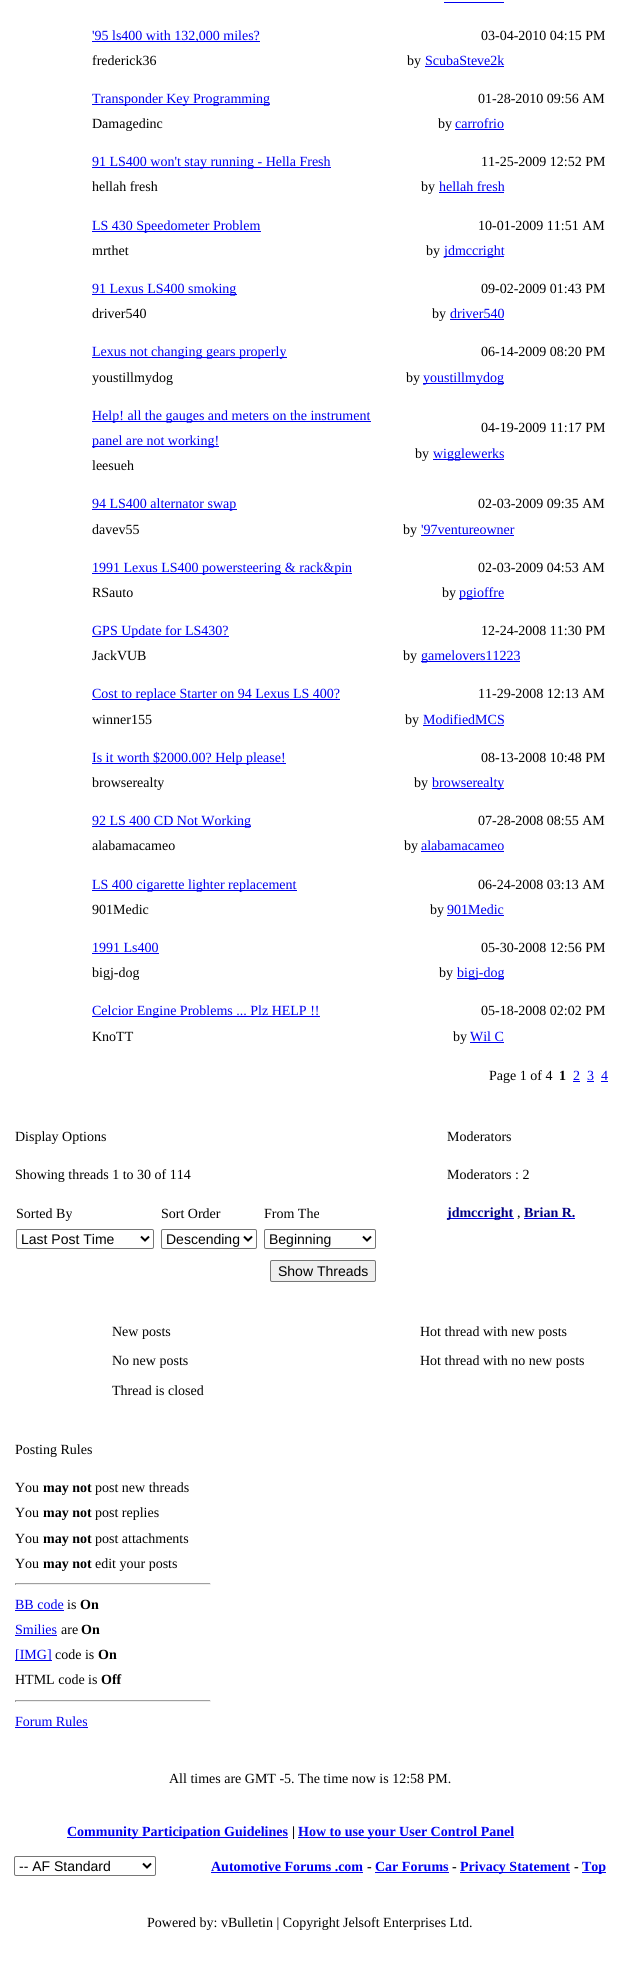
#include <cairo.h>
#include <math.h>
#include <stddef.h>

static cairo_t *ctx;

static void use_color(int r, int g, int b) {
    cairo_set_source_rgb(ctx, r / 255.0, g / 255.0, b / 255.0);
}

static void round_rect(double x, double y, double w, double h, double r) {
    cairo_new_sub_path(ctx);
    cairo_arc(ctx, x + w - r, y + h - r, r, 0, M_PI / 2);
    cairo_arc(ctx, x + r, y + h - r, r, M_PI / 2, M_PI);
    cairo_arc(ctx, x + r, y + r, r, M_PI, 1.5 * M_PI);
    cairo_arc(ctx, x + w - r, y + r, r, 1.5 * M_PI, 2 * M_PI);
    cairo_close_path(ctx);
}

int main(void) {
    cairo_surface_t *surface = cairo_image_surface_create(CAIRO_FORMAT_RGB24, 620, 1964);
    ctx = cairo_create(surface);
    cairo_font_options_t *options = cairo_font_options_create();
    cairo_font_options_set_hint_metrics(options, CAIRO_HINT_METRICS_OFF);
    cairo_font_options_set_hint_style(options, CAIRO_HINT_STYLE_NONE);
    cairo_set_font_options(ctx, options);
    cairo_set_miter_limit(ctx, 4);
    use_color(255, 255, 255);
    cairo_paint(ctx);
    use_color(0, 0, 238);
    cairo_rectangle(ctx, 444, 2, 60, 1);
    cairo_fill(ctx);
    cairo_rectangle(ctx, 92, 41, 168, 1);
    cairo_fill(ctx);
    cairo_select_font_face(ctx, "Liberation Serif", CAIRO_FONT_SLANT_NORMAL, CAIRO_FONT_WEIGHT_NORMAL);
    cairo_set_font_size(ctx, 14);
    cairo_move_to(ctx, 92, 40);
    cairo_show_text(ctx, "'95 ls400 with 132,000 miles?");
    use_color(0, 0, 0);
    cairo_move_to(ctx, 92, 65);
    cairo_show_text(ctx, "frederick36");
    cairo_move_to(ctx, 481, 40);
    cairo_show_text(ctx, "03-04-2010 04:15 PM");
    cairo_move_to(ctx, 407, 65);
    cairo_show_text(ctx, "by");
    use_color(0, 0, 238);
    cairo_move_to(ctx, 425, 65);
    cairo_show_text(ctx, "ScubaSteve2k");
    cairo_rectangle(ctx, 425, 66, 79, 1);
    cairo_fill(ctx);
    cairo_rectangle(ctx, 92, 104, 178, 1);
    cairo_fill(ctx);
    cairo_move_to(ctx, 92, 103);
    cairo_show_text(ctx, "Transponder Key Programming");
    use_color(0, 0, 0);
    cairo_move_to(ctx, 92, 128);
    cairo_show_text(ctx, "Damagedinc");
    cairo_move_to(ctx, 478, 103);
    cairo_show_text(ctx, "01-28-2010 09:56 AM");
    cairo_move_to(ctx, 438, 128);
    cairo_show_text(ctx, "by");
    use_color(0, 0, 238);
    cairo_move_to(ctx, 455, 128);
    cairo_show_text(ctx, "carrofrio");
    cairo_rectangle(ctx, 455, 129, 49, 1);
    cairo_fill(ctx);
    cairo_rectangle(ctx, 92, 167, 239, 1);
    cairo_fill(ctx);
    cairo_move_to(ctx, 92, 166);
    cairo_show_text(ctx, "91 LS400 won't stay running - Hella Fresh");
    use_color(0, 0, 0);
    cairo_move_to(ctx, 92, 191);
    cairo_show_text(ctx, "hellah fresh");
    cairo_move_to(ctx, 481, 166);
    cairo_show_text(ctx, "11-25-2009 12:52 PM");
    cairo_move_to(ctx, 421, 191);
    cairo_show_text(ctx, "by");
    use_color(0, 0, 238);
    cairo_move_to(ctx, 439, 191);
    cairo_show_text(ctx, "hellah fresh");
    cairo_rectangle(ctx, 439, 192, 65, 1);
    cairo_fill(ctx);
    cairo_rectangle(ctx, 92, 231, 169, 1);
    cairo_fill(ctx);
    cairo_move_to(ctx, 92, 230);
    cairo_show_text(ctx, "LS 430 Speedometer Problem");
    use_color(0, 0, 0);
    cairo_move_to(ctx, 92, 255);
    cairo_show_text(ctx, "mrthet");
    cairo_move_to(ctx, 478, 230);
    cairo_show_text(ctx, "10-01-2009 11:51 AM");
    cairo_move_to(ctx, 426, 255);
    cairo_show_text(ctx, "by");
    use_color(0, 0, 238);
    cairo_rectangle(ctx, 444, 256, 60, 1);
    cairo_fill(ctx);
    cairo_move_to(ctx, 444, 255);
    cairo_show_text(ctx, "jdmccright");
    cairo_rectangle(ctx, 92, 294, 145, 1);
    cairo_fill(ctx);
    cairo_move_to(ctx, 92, 293);
    cairo_show_text(ctx, "91 Lexus LS400 smoking");
    use_color(0, 0, 0);
    cairo_move_to(ctx, 92, 318);
    cairo_show_text(ctx, "driver540");
    cairo_move_to(ctx, 481, 293);
    cairo_show_text(ctx, "09-02-2009 01:43 PM");
    cairo_move_to(ctx, 432, 318);
    cairo_show_text(ctx, "by");
    use_color(0, 0, 238);
    cairo_move_to(ctx, 450, 318);
    cairo_show_text(ctx, "driver540");
    cairo_rectangle(ctx, 450, 319, 54, 1);
    cairo_fill(ctx);
    cairo_rectangle(ctx, 92, 357, 195, 1);
    cairo_fill(ctx);
    cairo_move_to(ctx, 92, 356);
    cairo_show_text(ctx, "Lexus not changing gears properly");
    use_color(0, 0, 0);
    cairo_move_to(ctx, 92, 382);
    cairo_show_text(ctx, "youstillmydog");
    cairo_move_to(ctx, 481, 356);
    cairo_show_text(ctx, "06-14-2009 08:20 PM");
    cairo_move_to(ctx, 406, 382);
    cairo_show_text(ctx, "by");
    use_color(0, 0, 238);
    cairo_rectangle(ctx, 423, 383, 81, 1);
    cairo_fill(ctx);
    cairo_move_to(ctx, 423, 382);
    cairo_show_text(ctx, "youstillmydog");
    cairo_rectangle(ctx, 92, 421, 279, 1);
    cairo_fill(ctx);
    cairo_move_to(ctx, 92, 420);
    cairo_show_text(ctx, "Help! all the gauges and meters on the instrument");
    cairo_rectangle(ctx, 92, 446, 127, 1);
    cairo_fill(ctx);
    cairo_move_to(ctx, 92, 445);
    cairo_show_text(ctx, "panel are not working!");
    use_color(0, 0, 0);
    cairo_move_to(ctx, 92, 470);
    cairo_show_text(ctx, "leesueh");
    cairo_move_to(ctx, 481, 432);
    cairo_show_text(ctx, "04-19-2009 11:17 PM");
    cairo_move_to(ctx, 415, 458);
    cairo_show_text(ctx, "by");
    use_color(0, 0, 238);
    cairo_rectangle(ctx, 433, 459, 71, 1);
    cairo_fill(ctx);
    cairo_move_to(ctx, 433, 458);
    cairo_show_text(ctx, "wigglewerks");
    cairo_rectangle(ctx, 92, 509, 145, 1);
    cairo_fill(ctx);
    cairo_move_to(ctx, 92, 508);
    cairo_show_text(ctx, "94 LS400 alternator swap");
    use_color(0, 0, 0);
    cairo_move_to(ctx, 92, 534);
    cairo_show_text(ctx, "davev55");
    cairo_move_to(ctx, 478, 508);
    cairo_show_text(ctx, "02-03-2009 09:35 AM");
    cairo_move_to(ctx, 403, 534);
    cairo_show_text(ctx, "by");
    use_color(0, 0, 238);
    cairo_move_to(ctx, 421, 534);
    cairo_show_text(ctx, "'97ventureowner");
    cairo_rectangle(ctx, 421, 535, 93, 1);
    cairo_fill(ctx);
    cairo_rectangle(ctx, 92, 573, 260, 1);
    cairo_fill(ctx);
    cairo_move_to(ctx, 92, 572);
    cairo_show_text(ctx, "1991 Lexus LS400 powersteering & rack&pin");
    use_color(0, 0, 0);
    cairo_move_to(ctx, 92, 597);
    cairo_show_text(ctx, "RSauto");
    cairo_move_to(ctx, 478, 572);
    cairo_show_text(ctx, "02-03-2009 04:53 AM");
    cairo_move_to(ctx, 442, 597);
    cairo_show_text(ctx, "by");
    use_color(0, 0, 238);
    cairo_rectangle(ctx, 459, 598, 45, 1);
    cairo_fill(ctx);
    cairo_move_to(ctx, 459, 597);
    cairo_show_text(ctx, "pgioffre");
    cairo_rectangle(ctx, 92, 636, 137, 1);
    cairo_fill(ctx);
    cairo_move_to(ctx, 92, 635);
    cairo_show_text(ctx, "GPS Update for LS430?");
    use_color(0, 0, 0);
    cairo_move_to(ctx, 92, 660);
    cairo_show_text(ctx, "JackVUB");
    cairo_move_to(ctx, 481, 635);
    cairo_show_text(ctx, "12-24-2008 11:30 PM");
    cairo_move_to(ctx, 403, 660);
    cairo_show_text(ctx, "by");
    use_color(0, 0, 238);
    cairo_rectangle(ctx, 421, 661, 99, 1);
    cairo_fill(ctx);
    cairo_move_to(ctx, 421, 660);
    cairo_show_text(ctx, "gamelovers11223");
    cairo_rectangle(ctx, 92, 699, 248, 1);
    cairo_fill(ctx);
    cairo_move_to(ctx, 92, 698);
    cairo_show_text(ctx, "Cost to replace Starter on 94 Lexus LS 400?");
    use_color(0, 0, 0);
    cairo_move_to(ctx, 92, 724);
    cairo_show_text(ctx, "winner155");
    cairo_move_to(ctx, 478, 698);
    cairo_show_text(ctx, "11-29-2008 12:13 AM");
    cairo_move_to(ctx, 405, 724);
    cairo_show_text(ctx, "by");
    use_color(0, 0, 238);
    cairo_move_to(ctx, 423, 724);
    cairo_show_text(ctx, "ModifiedMCS");
    cairo_rectangle(ctx, 423, 725, 81, 1);
    cairo_fill(ctx);
    cairo_rectangle(ctx, 92, 763, 194, 1);
    cairo_fill(ctx);
    cairo_move_to(ctx, 92, 762);
    cairo_show_text(ctx, "Is it worth $2000.00? Help please!");
    use_color(0, 0, 0);
    cairo_move_to(ctx, 92, 787);
    cairo_show_text(ctx, "browserealty");
    cairo_move_to(ctx, 481, 762);
    cairo_show_text(ctx, "08-13-2008 10:48 PM");
    cairo_move_to(ctx, 414, 787);
    cairo_show_text(ctx, "by");
    use_color(0, 0, 238);
    cairo_rectangle(ctx, 432, 788, 72, 1);
    cairo_fill(ctx);
    cairo_move_to(ctx, 432, 787);
    cairo_show_text(ctx, "browserealty");
    cairo_rectangle(ctx, 92, 826, 159, 1);
    cairo_fill(ctx);
    cairo_move_to(ctx, 92, 825);
    cairo_show_text(ctx, "92 LS 400 CD Not Working");
    use_color(0, 0, 0);
    cairo_move_to(ctx, 92, 850);
    cairo_show_text(ctx, "alabamacameo");
    cairo_move_to(ctx, 478, 825);
    cairo_show_text(ctx, "07-28-2008 08:55 AM");
    cairo_move_to(ctx, 404, 850);
    cairo_show_text(ctx, "by");
    use_color(0, 0, 238);
    cairo_move_to(ctx, 421, 850);
    cairo_show_text(ctx, "alabamacameo");
    cairo_rectangle(ctx, 421, 851, 83, 1);
    cairo_fill(ctx);
    cairo_rectangle(ctx, 92, 890, 205, 1);
    cairo_fill(ctx);
    cairo_move_to(ctx, 92, 889);
    cairo_show_text(ctx, "LS 400 cigarette lighter replacement");
    use_color(0, 0, 0);
    cairo_move_to(ctx, 92, 914);
    cairo_show_text(ctx, "901Medic");
    cairo_move_to(ctx, 478, 889);
    cairo_show_text(ctx, "06-24-2008 03:13 AM");
    cairo_move_to(ctx, 430, 914);
    cairo_show_text(ctx, "by");
    use_color(0, 0, 238);
    cairo_move_to(ctx, 447, 914);
    cairo_show_text(ctx, "901Medic");
    cairo_rectangle(ctx, 447, 915, 57, 1);
    cairo_fill(ctx);
    cairo_move_to(ctx, 92, 952);
    cairo_show_text(ctx, "1991 Ls400");
    cairo_rectangle(ctx, 92, 953, 67, 1);
    cairo_fill(ctx);
    use_color(0, 0, 0);
    cairo_move_to(ctx, 92, 977);
    cairo_show_text(ctx, "bigj-dog");
    cairo_move_to(ctx, 481, 952);
    cairo_show_text(ctx, "05-30-2008 12:56 PM");
    cairo_move_to(ctx, 439, 977);
    cairo_show_text(ctx, "by");
    use_color(0, 0, 238);
    cairo_rectangle(ctx, 457, 978, 47, 1);
    cairo_fill(ctx);
    cairo_move_to(ctx, 457, 977);
    cairo_show_text(ctx, "bigj-dog");
    cairo_rectangle(ctx, 92, 1016, 228, 1);
    cairo_fill(ctx);
    cairo_move_to(ctx, 92, 1015);
    cairo_show_text(ctx, "Celcior Engine Problems ... Plz HELP !!");
    use_color(0, 0, 0);
    cairo_move_to(ctx, 92, 1041);
    cairo_show_text(ctx, "KnoTT");
    cairo_move_to(ctx, 481, 1015);
    cairo_show_text(ctx, "05-18-2008 02:02 PM");
    cairo_move_to(ctx, 453, 1041);
    cairo_show_text(ctx, "by");
    use_color(0, 0, 238);
    cairo_move_to(ctx, 470, 1041);
    cairo_show_text(ctx, "Wil C");
    cairo_rectangle(ctx, 470, 1042, 34, 1);
    cairo_fill(ctx);
    use_color(0, 0, 0);
    cairo_move_to(ctx, 489, 1080);
    cairo_show_text(ctx, "Page 1 of 4");
    cairo_select_font_face(ctx, "Liberation Serif", CAIRO_FONT_SLANT_NORMAL, CAIRO_FONT_WEIGHT_BOLD);
    cairo_move_to(ctx, 559, 1080);
    cairo_show_text(ctx, "1");
    cairo_select_font_face(ctx, "Liberation Serif", CAIRO_FONT_SLANT_NORMAL, CAIRO_FONT_WEIGHT_NORMAL);
    use_color(0, 0, 238);
    cairo_move_to(ctx, 573, 1080);
    cairo_show_text(ctx, "2");
    cairo_rectangle(ctx, 573, 1081, 7, 1);
    cairo_fill(ctx);
    cairo_move_to(ctx, 587, 1080);
    cairo_show_text(ctx, "3");
    cairo_rectangle(ctx, 587, 1081, 7, 1);
    cairo_fill(ctx);
    cairo_move_to(ctx, 601, 1080);
    cairo_show_text(ctx, "4");
    cairo_rectangle(ctx, 601, 1081, 7, 1);
    cairo_fill(ctx);
    use_color(0, 0, 0);
    cairo_move_to(ctx, 15, 1141);
    cairo_show_text(ctx, "Display Options");
    cairo_move_to(ctx, 447, 1141);
    cairo_show_text(ctx, "Moderators");
    cairo_move_to(ctx, 15, 1179);
    cairo_show_text(ctx, "Showing threads 1 to 30 of 114");
    cairo_move_to(ctx, 447, 1179);
    cairo_show_text(ctx, "Moderators : 2");
    cairo_move_to(ctx, 16, 1218);
    cairo_show_text(ctx, "Sorted By");
    round_rect(16.5, 1229.5, 137, 19, 1.5);
    use_color(118, 118, 118);
    cairo_set_line_width(ctx, 1);
    cairo_stroke(ctx);
    cairo_new_path(ctx);
    cairo_move_to(ctx, 141, 1236.5);
    cairo_line_to(ctx, 145, 1240.5);
    cairo_line_to(ctx, 149, 1236.5);
    use_color(0, 0, 0);
    cairo_set_line_width(ctx, 2);
    cairo_stroke(ctx);
    cairo_select_font_face(ctx, "Liberation Sans", CAIRO_FONT_SLANT_NORMAL, CAIRO_FONT_WEIGHT_NORMAL);
    cairo_move_to(ctx, 21, 1244);
    cairo_show_text(ctx, "Last Post Time");
    cairo_select_font_face(ctx, "Liberation Serif", CAIRO_FONT_SLANT_NORMAL, CAIRO_FONT_WEIGHT_NORMAL);
    cairo_move_to(ctx, 161, 1218);
    cairo_show_text(ctx, "Sort Order");
    round_rect(161.5, 1229.5, 95, 19, 1.5);
    use_color(118, 118, 118);
    cairo_set_line_width(ctx, 1);
    cairo_stroke(ctx);
    cairo_new_path(ctx);
    cairo_move_to(ctx, 244, 1236.5);
    cairo_line_to(ctx, 248, 1240.5);
    cairo_line_to(ctx, 252, 1236.5);
    use_color(0, 0, 0);
    cairo_set_line_width(ctx, 2);
    cairo_stroke(ctx);
    cairo_select_font_face(ctx, "Liberation Sans", CAIRO_FONT_SLANT_NORMAL, CAIRO_FONT_WEIGHT_NORMAL);
    cairo_move_to(ctx, 166, 1244);
    cairo_show_text(ctx, "Descending");
    cairo_select_font_face(ctx, "Liberation Serif", CAIRO_FONT_SLANT_NORMAL, CAIRO_FONT_WEIGHT_NORMAL);
    cairo_move_to(ctx, 264, 1218);
    cairo_show_text(ctx, "From The");
    round_rect(264.5, 1229.5, 111, 19, 1.5);
    use_color(118, 118, 118);
    cairo_set_line_width(ctx, 1);
    cairo_stroke(ctx);
    cairo_new_path(ctx);
    cairo_move_to(ctx, 363, 1236.5);
    cairo_line_to(ctx, 367, 1240.5);
    cairo_line_to(ctx, 371, 1236.5);
    use_color(0, 0, 0);
    cairo_set_line_width(ctx, 2);
    cairo_stroke(ctx);
    cairo_select_font_face(ctx, "Liberation Sans", CAIRO_FONT_SLANT_NORMAL, CAIRO_FONT_WEIGHT_NORMAL);
    cairo_move_to(ctx, 269, 1244);
    cairo_show_text(ctx, "Beginning");
    use_color(239, 239, 239);
    round_rect(270.5, 1260.5, 105, 21, 1.5);
    cairo_fill_preserve(ctx);
    use_color(118, 118, 118);
    cairo_set_line_width(ctx, 1);
    cairo_stroke(ctx);
    use_color(0, 0, 0);
    cairo_move_to(ctx, 278, 1276);
    cairo_show_text(ctx, "Show Threads");
    use_color(0, 0, 238);
    cairo_rectangle(ctx, 447, 1218, 67, 1);
    cairo_fill(ctx);
    cairo_select_font_face(ctx, "Liberation Serif", CAIRO_FONT_SLANT_NORMAL, CAIRO_FONT_WEIGHT_BOLD);
    use_color(0, 0, 128);
    cairo_move_to(ctx, 447, 1217);
    cairo_show_text(ctx, "jdmccright");
    cairo_select_font_face(ctx, "Liberation Serif", CAIRO_FONT_SLANT_NORMAL, CAIRO_FONT_WEIGHT_NORMAL);
    use_color(0, 0, 0);
    cairo_move_to(ctx, 517, 1217);
    cairo_show_text(ctx, ",");
    cairo_select_font_face(ctx, "Liberation Serif", CAIRO_FONT_SLANT_NORMAL, CAIRO_FONT_WEIGHT_BOLD);
    use_color(0, 0, 128);
    cairo_move_to(ctx, 524, 1217);
    cairo_show_text(ctx, "Brian R.");
    use_color(0, 0, 238);
    cairo_rectangle(ctx, 524, 1218, 51, 1);
    cairo_fill(ctx);
    cairo_select_font_face(ctx, "Liberation Serif", CAIRO_FONT_SLANT_NORMAL, CAIRO_FONT_WEIGHT_NORMAL);
    use_color(0, 0, 0);
    cairo_move_to(ctx, 112, 1336);
    cairo_show_text(ctx, "New posts");
    cairo_move_to(ctx, 420, 1336);
    cairo_show_text(ctx, "Hot thread with new posts");
    cairo_move_to(ctx, 112, 1365);
    cairo_show_text(ctx, "No new posts");
    cairo_move_to(ctx, 420, 1365);
    cairo_show_text(ctx, "Hot thread with no new posts");
    cairo_move_to(ctx, 112, 1395);
    cairo_show_text(ctx, "Thread is closed");
    cairo_move_to(ctx, 15, 1454);
    cairo_show_text(ctx, "Posting Rules");
    cairo_move_to(ctx, 15, 1492);
    cairo_show_text(ctx, "You");
    cairo_select_font_face(ctx, "Liberation Serif", CAIRO_FONT_SLANT_NORMAL, CAIRO_FONT_WEIGHT_BOLD);
    cairo_move_to(ctx, 43, 1492);
    cairo_show_text(ctx, "may not");
    cairo_select_font_face(ctx, "Liberation Serif", CAIRO_FONT_SLANT_NORMAL, CAIRO_FONT_WEIGHT_NORMAL);
    cairo_move_to(ctx, 95, 1492);
    cairo_show_text(ctx, "post new threads");
    cairo_move_to(ctx, 15, 1517);
    cairo_show_text(ctx, "You");
    cairo_select_font_face(ctx, "Liberation Serif", CAIRO_FONT_SLANT_NORMAL, CAIRO_FONT_WEIGHT_BOLD);
    cairo_move_to(ctx, 43, 1517);
    cairo_show_text(ctx, "may not");
    cairo_select_font_face(ctx, "Liberation Serif", CAIRO_FONT_SLANT_NORMAL, CAIRO_FONT_WEIGHT_NORMAL);
    cairo_move_to(ctx, 95, 1517);
    cairo_show_text(ctx, "post replies");
    cairo_move_to(ctx, 15, 1543);
    cairo_show_text(ctx, "You");
    cairo_select_font_face(ctx, "Liberation Serif", CAIRO_FONT_SLANT_NORMAL, CAIRO_FONT_WEIGHT_BOLD);
    cairo_move_to(ctx, 43, 1543);
    cairo_show_text(ctx, "may not");
    cairo_select_font_face(ctx, "Liberation Serif", CAIRO_FONT_SLANT_NORMAL, CAIRO_FONT_WEIGHT_NORMAL);
    cairo_move_to(ctx, 95, 1543);
    cairo_show_text(ctx, "post attachments");
    cairo_move_to(ctx, 15, 1568);
    cairo_show_text(ctx, "You");
    cairo_select_font_face(ctx, "Liberation Serif", CAIRO_FONT_SLANT_NORMAL, CAIRO_FONT_WEIGHT_BOLD);
    cairo_move_to(ctx, 43, 1568);
    cairo_show_text(ctx, "may not");
    cairo_select_font_face(ctx, "Liberation Serif", CAIRO_FONT_SLANT_NORMAL, CAIRO_FONT_WEIGHT_NORMAL);
    cairo_move_to(ctx, 95, 1568);
    cairo_show_text(ctx, "edit your posts");
    use_color(159, 159, 159);
    cairo_rectangle(ctx, 15, 1583, 196, 1);
    cairo_fill(ctx);
    use_color(238, 238, 238);
    cairo_rectangle(ctx, 210, 1583, 1, 2);
    cairo_fill(ctx);
    cairo_rectangle(ctx, 15, 1584, 196, 1);
    cairo_fill(ctx);
    use_color(159, 159, 159);
    cairo_rectangle(ctx, 15, 1583, 1, 2);
    cairo_fill(ctx);
    use_color(0, 0, 238);
    cairo_move_to(ctx, 15, 1609);
    cairo_show_text(ctx, "BB code");
    cairo_rectangle(ctx, 15, 1610, 49, 1);
    cairo_fill(ctx);
    use_color(0, 0, 0);
    cairo_move_to(ctx, 67, 1609);
    cairo_show_text(ctx, "is");
    cairo_select_font_face(ctx, "Liberation Serif", CAIRO_FONT_SLANT_NORMAL, CAIRO_FONT_WEIGHT_BOLD);
    cairo_move_to(ctx, 80, 1609);
    cairo_show_text(ctx, "On");
    cairo_select_font_face(ctx, "Liberation Serif", CAIRO_FONT_SLANT_NORMAL, CAIRO_FONT_WEIGHT_NORMAL);
    use_color(0, 0, 238);
    cairo_move_to(ctx, 15, 1634);
    cairo_show_text(ctx, "Smilies");
    cairo_rectangle(ctx, 15, 1635, 42, 1);
    cairo_fill(ctx);
    use_color(0, 0, 0);
    cairo_move_to(ctx, 61, 1634);
    cairo_show_text(ctx, "are");
    cairo_select_font_face(ctx, "Liberation Serif", CAIRO_FONT_SLANT_NORMAL, CAIRO_FONT_WEIGHT_BOLD);
    cairo_move_to(ctx, 81, 1634);
    cairo_show_text(ctx, "On");
    use_color(0, 0, 238);
    cairo_rectangle(ctx, 15, 1660, 37, 1);
    cairo_fill(ctx);
    cairo_select_font_face(ctx, "Liberation Serif", CAIRO_FONT_SLANT_NORMAL, CAIRO_FONT_WEIGHT_NORMAL);
    cairo_move_to(ctx, 15, 1659);
    cairo_show_text(ctx, "[IMG]");
    use_color(0, 0, 0);
    cairo_move_to(ctx, 55, 1659);
    cairo_show_text(ctx, "code is");
    cairo_select_font_face(ctx, "Liberation Serif", CAIRO_FONT_SLANT_NORMAL, CAIRO_FONT_WEIGHT_BOLD);
    cairo_move_to(ctx, 98, 1659);
    cairo_show_text(ctx, "On");
    cairo_select_font_face(ctx, "Liberation Serif", CAIRO_FONT_SLANT_NORMAL, CAIRO_FONT_WEIGHT_NORMAL);
    cairo_move_to(ctx, 15, 1684);
    cairo_show_text(ctx, "HTML code is");
    cairo_select_font_face(ctx, "Liberation Serif", CAIRO_FONT_SLANT_NORMAL, CAIRO_FONT_WEIGHT_BOLD);
    cairo_move_to(ctx, 101, 1684);
    cairo_show_text(ctx, "Off");
    use_color(159, 159, 159);
    cairo_rectangle(ctx, 15, 1700, 196, 1);
    cairo_fill(ctx);
    use_color(238, 238, 238);
    cairo_rectangle(ctx, 210, 1700, 1, 2);
    cairo_fill(ctx);
    cairo_rectangle(ctx, 15, 1701, 196, 1);
    cairo_fill(ctx);
    use_color(159, 159, 159);
    cairo_rectangle(ctx, 15, 1700, 1, 2);
    cairo_fill(ctx);
    cairo_select_font_face(ctx, "Liberation Serif", CAIRO_FONT_SLANT_NORMAL, CAIRO_FONT_WEIGHT_NORMAL);
    use_color(0, 0, 238);
    cairo_move_to(ctx, 15, 1726);
    cairo_show_text(ctx, "Forum Rules");
    cairo_rectangle(ctx, 15, 1727, 73, 1);
    cairo_fill(ctx);
    use_color(0, 0, 0);
    cairo_move_to(ctx, 169, 1783);
    cairo_show_text(ctx, "All times are GMT -5. The time now is 12:58 PM.");
    use_color(0, 0, 238);
    cairo_rectangle(ctx, 67, 1837, 221, 1);
    cairo_fill(ctx);
    cairo_select_font_face(ctx, "Liberation Serif", CAIRO_FONT_SLANT_NORMAL, CAIRO_FONT_WEIGHT_BOLD);
    cairo_move_to(ctx, 67, 1836);
    cairo_show_text(ctx, "Community Participation Guidelines");
    use_color(0, 0, 0);
    cairo_move_to(ctx, 292, 1836);
    cairo_show_text(ctx, "|");
    use_color(0, 0, 238);
    cairo_rectangle(ctx, 298, 1837, 216, 1);
    cairo_fill(ctx);
    cairo_move_to(ctx, 298, 1836);
    cairo_show_text(ctx, "How to use your User Control Panel");
    round_rect(14.5, 1856.5, 141, 19, 1.5);
    use_color(118, 118, 118);
    cairo_stroke(ctx);
    cairo_new_path(ctx);
    cairo_move_to(ctx, 143, 1863.5);
    cairo_line_to(ctx, 147, 1867.5);
    cairo_line_to(ctx, 151, 1863.5);
    use_color(0, 0, 0);
    cairo_set_line_width(ctx, 2);
    cairo_stroke(ctx);
    cairo_select_font_face(ctx, "Liberation Sans", CAIRO_FONT_SLANT_NORMAL, CAIRO_FONT_WEIGHT_NORMAL);
    cairo_move_to(ctx, 19, 1871);
    cairo_show_text(ctx, "-- AF Standard");
    cairo_select_font_face(ctx, "Liberation Serif", CAIRO_FONT_SLANT_NORMAL, CAIRO_FONT_WEIGHT_BOLD);
    use_color(0, 0, 238);
    cairo_move_to(ctx, 211, 1871);
    cairo_show_text(ctx, "Automotive Forums .com");
    cairo_rectangle(ctx, 211, 1872, 152, 1);
    cairo_fill(ctx);
    use_color(0, 0, 0);
    cairo_move_to(ctx, 367, 1871);
    cairo_show_text(ctx, "-");
    use_color(0, 0, 238);
    cairo_move_to(ctx, 375, 1871);
    cairo_show_text(ctx, "Car Forums");
    cairo_rectangle(ctx, 375, 1872, 74, 1);
    cairo_fill(ctx);
    use_color(0, 0, 0);
    cairo_move_to(ctx, 452, 1871);
    cairo_show_text(ctx, "-");
    use_color(0, 0, 238);
    cairo_rectangle(ctx, 460, 1872, 110, 1);
    cairo_fill(ctx);
    cairo_move_to(ctx, 460, 1871);
    cairo_show_text(ctx, "Privacy Statement");
    use_color(0, 0, 0);
    cairo_move_to(ctx, 574, 1871);
    cairo_show_text(ctx, "-");
    use_color(0, 0, 238);
    cairo_rectangle(ctx, 582, 1872, 24, 1);
    cairo_fill(ctx);
    cairo_move_to(ctx, 582, 1871);
    cairo_show_text(ctx, "Top");
    cairo_select_font_face(ctx, "Liberation Serif", CAIRO_FONT_SLANT_NORMAL, CAIRO_FONT_WEIGHT_NORMAL);
    use_color(0, 0, 0);
    cairo_move_to(ctx, 147, 1927);
    cairo_show_text(ctx, "Powered by: vBulletin | Copyright Jelsoft Enterprises Ltd.");
    cairo_surface_write_to_png(surface, "result.png");
    cairo_font_options_destroy(options);
    cairo_destroy(ctx);
    cairo_surface_destroy(surface);
    return 0;
}
